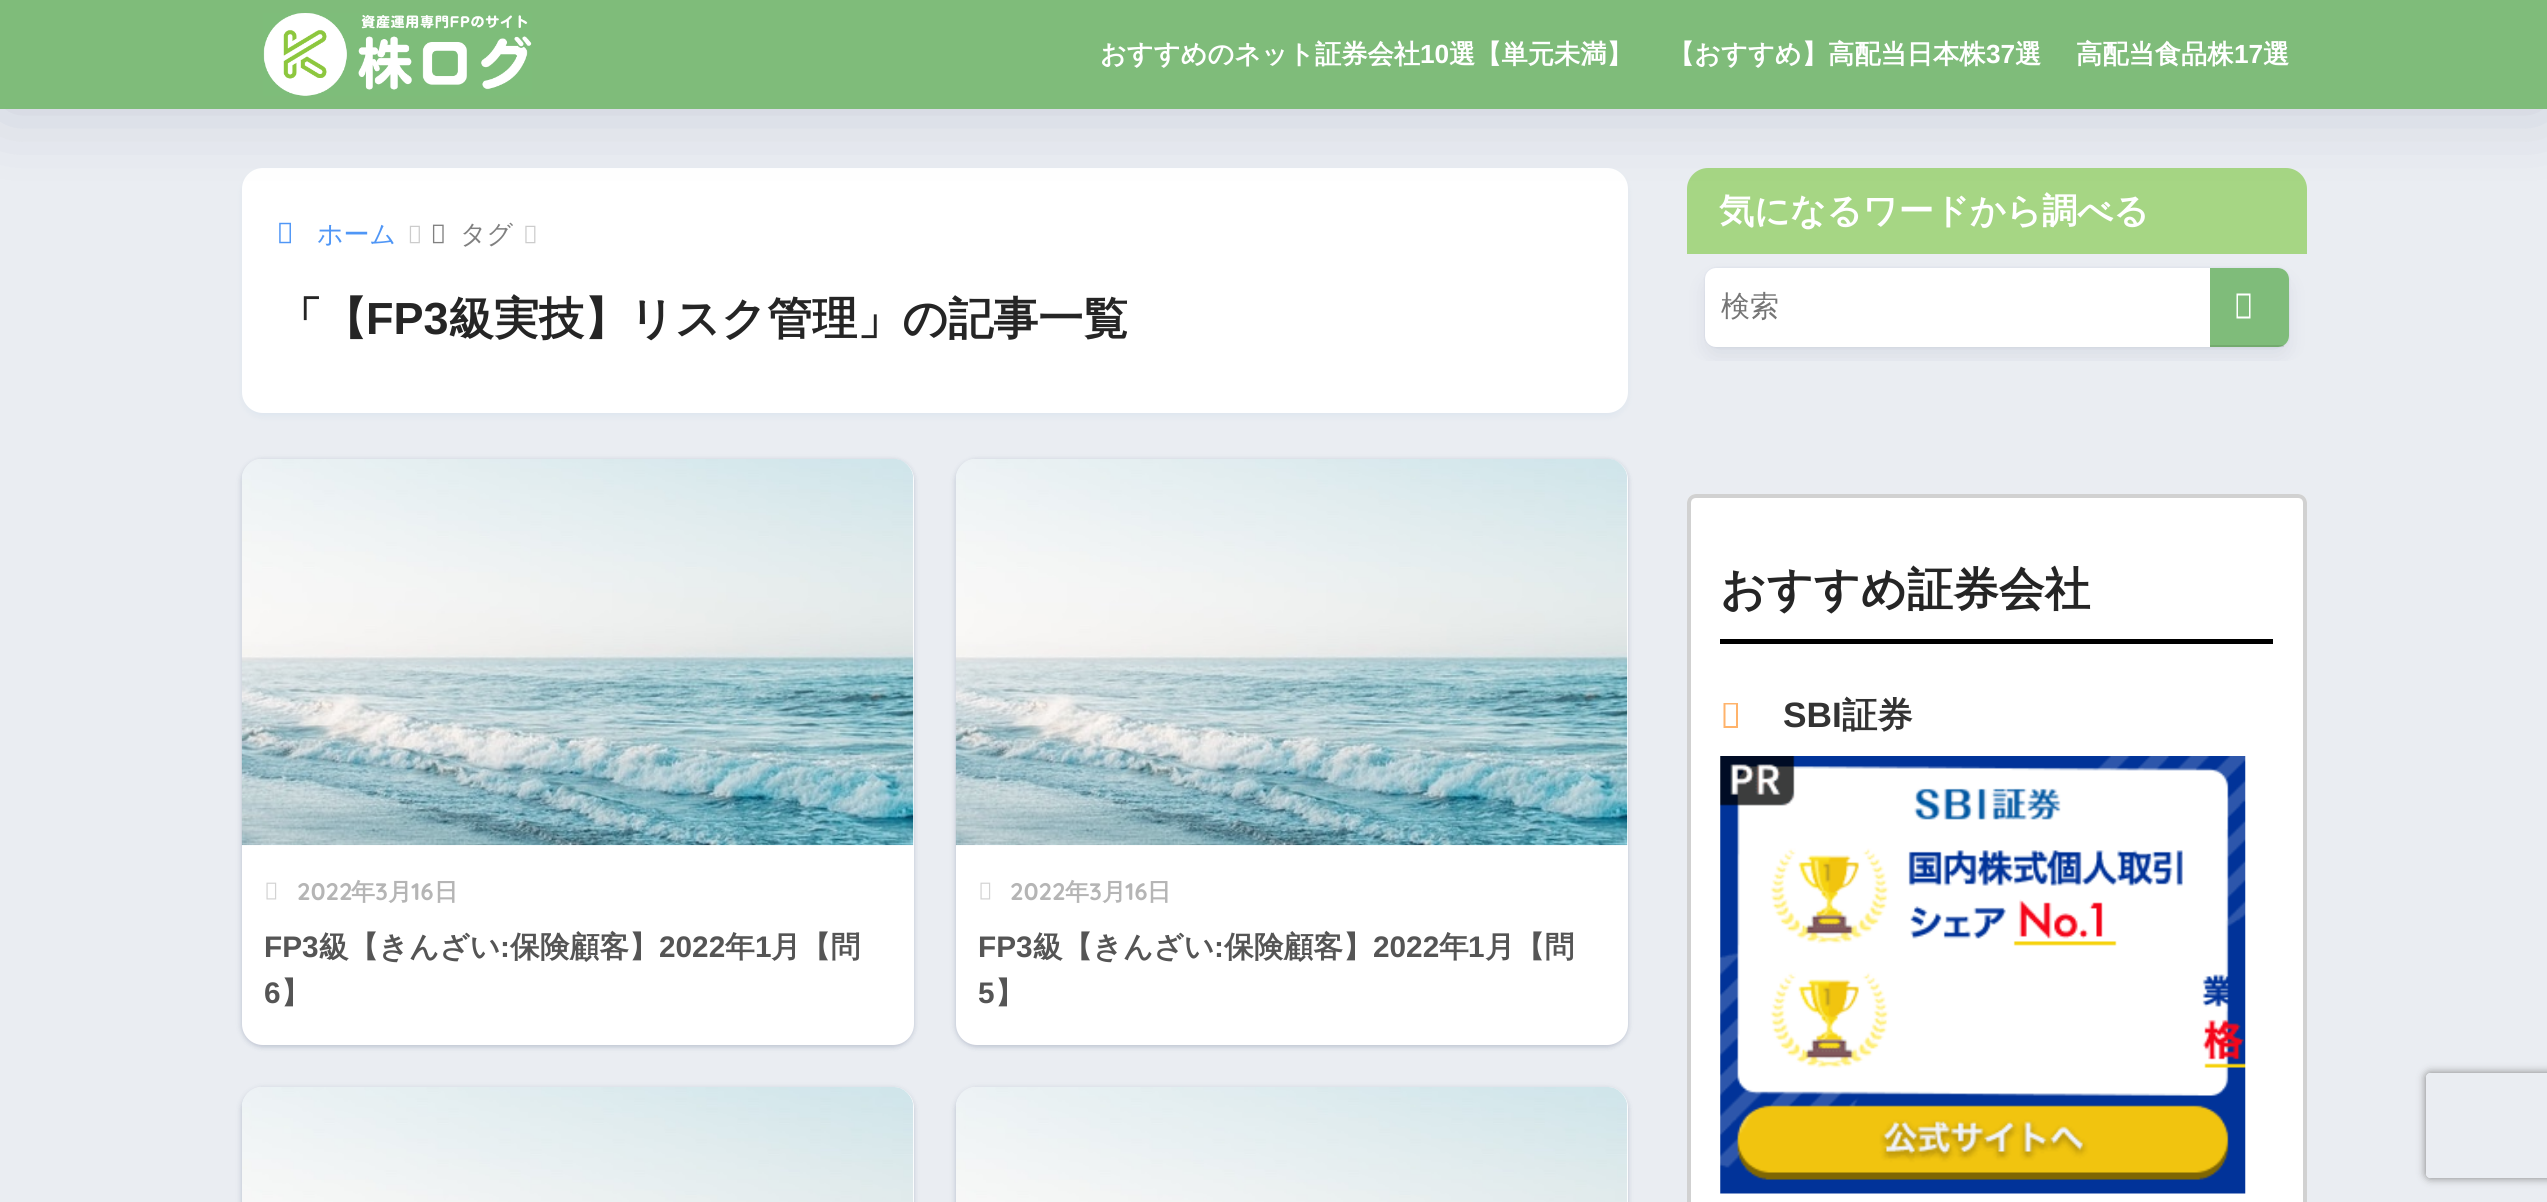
#include <cairo.h>
#include <math.h>
#include <stddef.h>

static cairo_t *ctx;

static void use_color(int r, int g, int b) {
    cairo_set_source_rgb(ctx, r / 255.0, g / 255.0, b / 255.0);
}

static void round_rect(double x, double y, double w, double h, double r) {
    cairo_new_sub_path(ctx);
    cairo_arc(ctx, x + w - r, y + h - r, r, 0, M_PI / 2);
    cairo_arc(ctx, x + r, y + h - r, r, M_PI / 2, M_PI);
    cairo_arc(ctx, x + r, y + r, r, M_PI, 1.5 * M_PI);
    cairo_arc(ctx, x + w - r, y + r, r, 1.5 * M_PI, 2 * M_PI);
    cairo_close_path(ctx);
}

static void shadow(double x, double y, double w, double h, double r, double blur, double alpha) {
    cairo_push_group_with_content(ctx, CAIRO_CONTENT_ALPHA);
    cairo_set_operator(ctx, CAIRO_OPERATOR_SOURCE);
    for (int i = 15; i >= -15 && fmin(w, h) + blur * i / 3 > 0; i -= 2) {
        double e = blur * i / 6;
        cairo_set_source_rgba(ctx, 0, 0, 0, alpha * erfc((i - 1) / 8.5) / 2);
        round_rect(x - e, y - e, w + 2 * e, h + 2 * e, fmax(0, fmin(r + e + blur * .6, fmin(w, h) / 2 + e)));
        cairo_fill(ctx);
    }
    cairo_pattern_t *soft = cairo_pop_group(ctx);
    cairo_mask(ctx, soft);
    cairo_pattern_destroy(soft);
}

static void picture(const char *path, double x, double y, double w, double h) {
    cairo_surface_t *image = cairo_image_surface_create_from_png(path);
    cairo_save(ctx);
    cairo_set_source_surface(ctx, image, x, y);
    cairo_rectangle(ctx, x, y, w, h);
    cairo_fill(ctx);
    cairo_restore(ctx);
    cairo_surface_destroy(image);
}

int main(void) {
    cairo_surface_t *surface = cairo_image_surface_create(CAIRO_FORMAT_RGB24, 2547, 1202);
    ctx = cairo_create(surface);
    cairo_font_options_t *options = cairo_font_options_create();
    cairo_font_options_set_hint_metrics(options, CAIRO_HINT_METRICS_OFF);
    cairo_font_options_set_hint_style(options, CAIRO_HINT_STYLE_NONE);
    cairo_set_font_options(ctx, options);
    cairo_set_miter_limit(ctx, 4);
    use_color(234, 237, 242);
    cairo_paint(ctx);
    use_color(67, 133, 187);
    shadow(242, 172, 1386, 245, 21, 3.5, 0.07);
    use_color(255, 255, 255);
    round_rect(242, 168, 1386, 245, 21);
    cairo_fill(ctx);
    picture("img2.png", 279, 222, 12, 22);
    picture("img3.png", 409, 225, 11, 19);
    picture("img4.png", 432, 224, 12, 20);
    picture("img5.png", 525, 225, 11, 19);
    use_color(166, 214, 132);
    cairo_new_path(ctx);
    cairo_move_to(ctx, 1708, 168);
    cairo_line_to(ctx, 2286, 168);
    cairo_curve_to(ctx, 2297.5, 168, 2307, 177.5, 2307, 189);
    cairo_line_to(ctx, 2307, 254);
    cairo_line_to(ctx, 1687, 254);
    cairo_line_to(ctx, 1687, 189);
    cairo_curve_to(ctx, 1687, 177.5, 1696.5, 168, 1708, 168);
    cairo_close_path(ctx);
    cairo_fill(ctx);
    use_color(0, 12, 66);
    shadow(0, 0, 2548, 109, 0, 39.5, 0.15);
    use_color(127, 188, 122);
    cairo_rectangle(ctx, 0, 0, 2547, 109);
    cairo_fill(ctx);
    picture("img1.png", 263, 13, 269, 83);
    cairo_select_font_face(ctx, "WenQuanYi Zen Hei", CAIRO_FONT_SLANT_NORMAL, CAIRO_FONT_WEIGHT_BOLD);
    cairo_set_font_size(ctx, 26.25);
    use_color(255, 255, 255);
    cairo_move_to(ctx, 1100, 63);
    cairo_show_text(ctx, "おすすめのネット証券会社");
    cairo_select_font_face(ctx, "Liberation Sans", CAIRO_FONT_SLANT_NORMAL, CAIRO_FONT_WEIGHT_BOLD);
    cairo_move_to(ctx, 1420, 63);
    cairo_show_text(ctx, "10");
    cairo_select_font_face(ctx, "WenQuanYi Zen Hei", CAIRO_FONT_SLANT_NORMAL, CAIRO_FONT_WEIGHT_BOLD);
    cairo_move_to(ctx, 1449, 63);
    cairo_show_text(ctx, "選【単元未満】");
    cairo_move_to(ctx, 1668, 63);
    cairo_show_text(ctx, "【おすすめ】高配当日本株");
    cairo_select_font_face(ctx, "Liberation Sans", CAIRO_FONT_SLANT_NORMAL, CAIRO_FONT_WEIGHT_BOLD);
    cairo_move_to(ctx, 1986, 63);
    cairo_show_text(ctx, "37");
    cairo_select_font_face(ctx, "WenQuanYi Zen Hei", CAIRO_FONT_SLANT_NORMAL, CAIRO_FONT_WEIGHT_BOLD);
    cairo_move_to(ctx, 2015, 63);
    cairo_show_text(ctx, "選");
    cairo_move_to(ctx, 2076, 63);
    cairo_show_text(ctx, "高配当食品株");
    cairo_select_font_face(ctx, "Liberation Sans", CAIRO_FONT_SLANT_NORMAL, CAIRO_FONT_WEIGHT_BOLD);
    cairo_move_to(ctx, 2234, 63);
    cairo_show_text(ctx, "17");
    cairo_select_font_face(ctx, "WenQuanYi Zen Hei", CAIRO_FONT_SLANT_NORMAL, CAIRO_FONT_WEIGHT_BOLD);
    cairo_move_to(ctx, 2263, 63);
    cairo_show_text(ctx, "選");
    cairo_select_font_face(ctx, "WenQuanYi Zen Hei Medium", CAIRO_FONT_SLANT_NORMAL, CAIRO_FONT_WEIGHT_NORMAL);
    cairo_set_font_size(ctx, 26);
    use_color(79, 150, 246);
    cairo_move_to(ctx, 317, 243);
    cairo_show_text(ctx, "ホーム");
    use_color(128, 128, 128);
    cairo_move_to(ctx, 460, 243);
    cairo_show_text(ctx, "タグ");
    cairo_select_font_face(ctx, "WenQuanYi Zen Hei", CAIRO_FONT_SLANT_NORMAL, CAIRO_FONT_WEIGHT_BOLD);
    cairo_set_font_size(ctx, 45);
    use_color(37, 37, 37);
    cairo_move_to(ctx, 277, 334);
    cairo_show_text(ctx, "「【");
    cairo_select_font_face(ctx, "Liberation Sans", CAIRO_FONT_SLANT_NORMAL, CAIRO_FONT_WEIGHT_BOLD);
    cairo_move_to(ctx, 366, 334);
    cairo_show_text(ctx, "FP3");
    cairo_select_font_face(ctx, "WenQuanYi Zen Hei", CAIRO_FONT_SLANT_NORMAL, CAIRO_FONT_WEIGHT_BOLD);
    cairo_move_to(ctx, 449, 334);
    cairo_show_text(ctx, "級実技】リスク管理」の記事一覧");
    use_color(24, 44, 84);
    shadow(240, 459, 675, 589, 23, 2.5, 0.1);
    shadow(242, 460, 672, 587, 21, 2, 0.1);
    use_color(255, 255, 255);
    round_rect(242, 459, 672, 586, 21);
    cairo_fill(ctx);
    picture("img6.png", 241, 459, 673, 387);
    picture("img7.png", 266, 882, 11, 18);
    cairo_select_font_face(ctx, "Quicksand", CAIRO_FONT_SLANT_NORMAL, CAIRO_FONT_WEIGHT_BOLD);
    cairo_set_font_size(ctx, 24);
    use_color(181, 181, 181);
    cairo_move_to(ctx, 297, 900);
    cairo_show_text(ctx, "2022");
    cairo_select_font_face(ctx, "WenQuanYi Zen Hei", CAIRO_FONT_SLANT_NORMAL, CAIRO_FONT_WEIGHT_BOLD);
    cairo_move_to(ctx, 351, 900);
    cairo_show_text(ctx, "年");
    cairo_select_font_face(ctx, "Quicksand", CAIRO_FONT_SLANT_NORMAL, CAIRO_FONT_WEIGHT_BOLD);
    cairo_move_to(ctx, 375, 900);
    cairo_show_text(ctx, "3");
    cairo_select_font_face(ctx, "WenQuanYi Zen Hei", CAIRO_FONT_SLANT_NORMAL, CAIRO_FONT_WEIGHT_BOLD);
    cairo_move_to(ctx, 388, 900);
    cairo_show_text(ctx, "月");
    cairo_select_font_face(ctx, "Quicksand", CAIRO_FONT_SLANT_NORMAL, CAIRO_FONT_WEIGHT_BOLD);
    cairo_move_to(ctx, 411, 900);
    cairo_show_text(ctx, "16");
    cairo_select_font_face(ctx, "WenQuanYi Zen Hei", CAIRO_FONT_SLANT_NORMAL, CAIRO_FONT_WEIGHT_BOLD);
    cairo_move_to(ctx, 434, 900);
    cairo_show_text(ctx, "日");
    cairo_select_font_face(ctx, "Liberation Sans", CAIRO_FONT_SLANT_NORMAL, CAIRO_FONT_WEIGHT_BOLD);
    cairo_set_font_size(ctx, 29.75);
    use_color(85, 85, 85);
    cairo_move_to(ctx, 264, 957);
    cairo_show_text(ctx, "FP3");
    cairo_select_font_face(ctx, "WenQuanYi Zen Hei", CAIRO_FONT_SLANT_NORMAL, CAIRO_FONT_WEIGHT_BOLD);
    cairo_move_to(ctx, 319, 957);
    cairo_show_text(ctx, "級【きんざい");
    cairo_select_font_face(ctx, "Liberation Sans", CAIRO_FONT_SLANT_NORMAL, CAIRO_FONT_WEIGHT_BOLD);
    cairo_move_to(ctx, 500, 957);
    cairo_show_text(ctx, ":");
    cairo_select_font_face(ctx, "WenQuanYi Zen Hei", CAIRO_FONT_SLANT_NORMAL, CAIRO_FONT_WEIGHT_BOLD);
    cairo_move_to(ctx, 510, 957);
    cairo_show_text(ctx, "保険顧客】");
    cairo_select_font_face(ctx, "Liberation Sans", CAIRO_FONT_SLANT_NORMAL, CAIRO_FONT_WEIGHT_BOLD);
    cairo_move_to(ctx, 659, 957);
    cairo_show_text(ctx, "2022");
    cairo_select_font_face(ctx, "WenQuanYi Zen Hei", CAIRO_FONT_SLANT_NORMAL, CAIRO_FONT_WEIGHT_BOLD);
    cairo_move_to(ctx, 725, 957);
    cairo_show_text(ctx, "年");
    cairo_select_font_face(ctx, "Liberation Sans", CAIRO_FONT_SLANT_NORMAL, CAIRO_FONT_WEIGHT_BOLD);
    cairo_move_to(ctx, 755, 957);
    cairo_show_text(ctx, "1");
    cairo_select_font_face(ctx, "WenQuanYi Zen Hei", CAIRO_FONT_SLANT_NORMAL, CAIRO_FONT_WEIGHT_BOLD);
    cairo_move_to(ctx, 771, 957);
    cairo_show_text(ctx, "月【問");
    cairo_select_font_face(ctx, "Liberation Sans", CAIRO_FONT_SLANT_NORMAL, CAIRO_FONT_WEIGHT_BOLD);
    cairo_move_to(ctx, 264, 1003);
    cairo_show_text(ctx, "6");
    cairo_select_font_face(ctx, "WenQuanYi Zen Hei", CAIRO_FONT_SLANT_NORMAL, CAIRO_FONT_WEIGHT_BOLD);
    cairo_move_to(ctx, 281, 1003);
    cairo_show_text(ctx, "】");
    use_color(24, 44, 84);
    shadow(954, 459, 675, 589, 23, 2.5, 0.1);
    shadow(956, 460, 672, 587, 21, 2, 0.1);
    use_color(255, 255, 255);
    round_rect(956, 459, 672, 586, 21);
    cairo_fill(ctx);
    picture("img8.png", 955, 459, 673, 387);
    picture("img7.png", 980, 882, 11, 18);
    cairo_select_font_face(ctx, "Quicksand", CAIRO_FONT_SLANT_NORMAL, CAIRO_FONT_WEIGHT_BOLD);
    cairo_set_font_size(ctx, 24);
    use_color(181, 181, 181);
    cairo_move_to(ctx, 1010, 900);
    cairo_show_text(ctx, "2022");
    cairo_select_font_face(ctx, "WenQuanYi Zen Hei", CAIRO_FONT_SLANT_NORMAL, CAIRO_FONT_WEIGHT_BOLD);
    cairo_move_to(ctx, 1065, 900);
    cairo_show_text(ctx, "年");
    cairo_select_font_face(ctx, "Quicksand", CAIRO_FONT_SLANT_NORMAL, CAIRO_FONT_WEIGHT_BOLD);
    cairo_move_to(ctx, 1089, 900);
    cairo_show_text(ctx, "3");
    cairo_select_font_face(ctx, "WenQuanYi Zen Hei", CAIRO_FONT_SLANT_NORMAL, CAIRO_FONT_WEIGHT_BOLD);
    cairo_move_to(ctx, 1102, 900);
    cairo_show_text(ctx, "月");
    cairo_select_font_face(ctx, "Quicksand", CAIRO_FONT_SLANT_NORMAL, CAIRO_FONT_WEIGHT_BOLD);
    cairo_move_to(ctx, 1125, 900);
    cairo_show_text(ctx, "16");
    cairo_select_font_face(ctx, "WenQuanYi Zen Hei", CAIRO_FONT_SLANT_NORMAL, CAIRO_FONT_WEIGHT_BOLD);
    cairo_move_to(ctx, 1147, 900);
    cairo_show_text(ctx, "日");
    cairo_select_font_face(ctx, "Liberation Sans", CAIRO_FONT_SLANT_NORMAL, CAIRO_FONT_WEIGHT_BOLD);
    cairo_set_font_size(ctx, 29.75);
    use_color(85, 85, 85);
    cairo_move_to(ctx, 978, 957);
    cairo_show_text(ctx, "FP3");
    cairo_select_font_face(ctx, "WenQuanYi Zen Hei", CAIRO_FONT_SLANT_NORMAL, CAIRO_FONT_WEIGHT_BOLD);
    cairo_move_to(ctx, 1033, 957);
    cairo_show_text(ctx, "級【きんざい");
    cairo_select_font_face(ctx, "Liberation Sans", CAIRO_FONT_SLANT_NORMAL, CAIRO_FONT_WEIGHT_BOLD);
    cairo_move_to(ctx, 1214, 957);
    cairo_show_text(ctx, ":");
    cairo_select_font_face(ctx, "WenQuanYi Zen Hei", CAIRO_FONT_SLANT_NORMAL, CAIRO_FONT_WEIGHT_BOLD);
    cairo_move_to(ctx, 1224, 957);
    cairo_show_text(ctx, "保険顧客】");
    cairo_select_font_face(ctx, "Liberation Sans", CAIRO_FONT_SLANT_NORMAL, CAIRO_FONT_WEIGHT_BOLD);
    cairo_move_to(ctx, 1373, 957);
    cairo_show_text(ctx, "2022");
    cairo_select_font_face(ctx, "WenQuanYi Zen Hei", CAIRO_FONT_SLANT_NORMAL, CAIRO_FONT_WEIGHT_BOLD);
    cairo_move_to(ctx, 1439, 957);
    cairo_show_text(ctx, "年");
    cairo_select_font_face(ctx, "Liberation Sans", CAIRO_FONT_SLANT_NORMAL, CAIRO_FONT_WEIGHT_BOLD);
    cairo_move_to(ctx, 1468, 957);
    cairo_show_text(ctx, "1");
    cairo_select_font_face(ctx, "WenQuanYi Zen Hei", CAIRO_FONT_SLANT_NORMAL, CAIRO_FONT_WEIGHT_BOLD);
    cairo_move_to(ctx, 1485, 957);
    cairo_show_text(ctx, "月【問");
    cairo_select_font_face(ctx, "Liberation Sans", CAIRO_FONT_SLANT_NORMAL, CAIRO_FONT_WEIGHT_BOLD);
    cairo_move_to(ctx, 978, 1003);
    cairo_show_text(ctx, "5");
    cairo_select_font_face(ctx, "WenQuanYi Zen Hei", CAIRO_FONT_SLANT_NORMAL, CAIRO_FONT_WEIGHT_BOLD);
    cairo_move_to(ctx, 995, 1003);
    cairo_show_text(ctx, "】");
    use_color(24, 44, 84);
    shadow(240, 1087, 675, 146, 23, 2.5, 0.1);
    shadow(242, 1089, 672, 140, 21, 2, 0.1);
    use_color(255, 255, 255);
    round_rect(242, 1087, 672, 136, 21);
    cairo_fill(ctx);
    picture("img9.png", 242, 1087, 672, 115);
    use_color(24, 44, 84);
    shadow(954, 1087, 675, 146, 23, 2.5, 0.1);
    shadow(956, 1089, 672, 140, 21, 2, 0.1);
    use_color(255, 255, 255);
    round_rect(956, 1087, 672, 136, 21);
    cairo_fill(ctx);
    picture("img10.png", 956, 1087, 672, 115);
    cairo_set_font_size(ctx, 35.25);
    cairo_move_to(ctx, 1719, 223);
    cairo_show_text(ctx, "気になるワードから調べる");
    use_color(0, 30, 100);
    shadow(1705, 268, 584, 79, 11, 1, 0.1);
    cairo_save(ctx);
    round_rect(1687, 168, 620, 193, 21);
    cairo_clip(ctx);
    use_color(0, 12, 66);
    shadow(1710, 284, 574, 68, 5, 11.5, 0.1);
    cairo_restore(ctx);
    use_color(255, 255, 255);
    round_rect(1705, 268, 584, 79, 11);
    cairo_fill(ctx);
    cairo_select_font_face(ctx, "WenQuanYi Zen Hei Medium", CAIRO_FONT_SLANT_NORMAL, CAIRO_FONT_WEIGHT_NORMAL);
    cairo_set_font_size(ctx, 29);
    use_color(117, 117, 117);
    cairo_move_to(ctx, 1721, 316);
    cairo_show_text(ctx, "検索");
    use_color(127, 188, 122);
    cairo_new_path(ctx);
    cairo_move_to(ctx, 2210, 268);
    cairo_line_to(ctx, 2278, 268);
    cairo_curve_to(ctx, 2284, 268, 2289, 273, 2289, 279);
    cairo_line_to(ctx, 2289, 336);
    cairo_curve_to(ctx, 2289, 342, 2284, 347, 2278, 347);
    cairo_line_to(ctx, 2210, 347);
    cairo_close_path(ctx);
    cairo_fill(ctx);
    cairo_set_source_rgba(ctx, 0, 0, 0, 0.1);
    cairo_rectangle(ctx, 2210, 345, 74, 2);
    cairo_fill(ctx);
    use_color(255, 255, 255);
    cairo_new_path(ctx);
    cairo_move_to(ctx, 2236.5, 318.5);
    cairo_line_to(ctx, 2236.5, 293.5);
    cairo_line_to(ctx, 2250.5, 293.5);
    cairo_line_to(ctx, 2250.5, 318.5);
    cairo_close_path(ctx);
    cairo_move_to(ctx, 2238, 316.5);
    cairo_line_to(ctx, 2249, 316.5);
    cairo_line_to(ctx, 2249, 295.5);
    cairo_line_to(ctx, 2238, 295.5);
    cairo_close_path(ctx);
    cairo_fill(ctx);
    cairo_new_path(ctx);
    cairo_move_to(ctx, 1696, 494);
    cairo_line_to(ctx, 2298, 494);
    cairo_curve_to(ctx, 2303, 494, 2307, 498, 2307, 503);
    cairo_line_to(ctx, 2307, 1202);
    cairo_curve_to(ctx, 2307, 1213.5, 2297.5, 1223, 2286, 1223);
    cairo_line_to(ctx, 1708, 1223);
    cairo_curve_to(ctx, 1696.5, 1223, 1687, 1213.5, 1687, 1202);
    cairo_line_to(ctx, 1687, 503);
    cairo_curve_to(ctx, 1687, 498, 1691, 494, 1696, 494);
    cairo_close_path(ctx);
    cairo_fill(ctx);
    use_color(209, 209, 209);
    cairo_set_fill_rule(ctx, CAIRO_FILL_RULE_EVEN_ODD);
    cairo_new_path(ctx);
    cairo_move_to(ctx, 1696, 494);
    cairo_curve_to(ctx, 1691, 494, 1687, 498, 1687, 503);
    cairo_line_to(ctx, 1687, 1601);
    cairo_curve_to(ctx, 1687, 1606, 1688, 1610, 1691, 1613);
    cairo_line_to(ctx, 1691, 503);
    cairo_curve_to(ctx, 1691, 500, 1693, 498, 1696, 498);
    cairo_line_to(ctx, 2298, 498);
    cairo_curve_to(ctx, 2301, 498, 2303, 500, 2303, 503);
    cairo_line_to(ctx, 2303, 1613);
    cairo_curve_to(ctx, 2306, 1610, 2307, 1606, 2307, 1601);
    cairo_line_to(ctx, 2307, 503);
    cairo_curve_to(ctx, 2307, 498, 2303, 494, 2298, 494);
    cairo_close_path(ctx);
    cairo_move_to(ctx, 2286, 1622);
    cairo_curve_to(ctx, 2291, 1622, 2295, 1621, 2298, 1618);
    cairo_line_to(ctx, 1696, 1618);
    cairo_curve_to(ctx, 1699, 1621, 1703, 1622, 1708, 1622);
    cairo_close_path(ctx);
    cairo_fill(ctx);
    use_color(0, 0, 0);
    cairo_rectangle(ctx, 1720, 639, 553, 5);
    cairo_fill(ctx);
    cairo_select_font_face(ctx, "WenQuanYi Zen Hei", CAIRO_FONT_SLANT_NORMAL, CAIRO_FONT_WEIGHT_BOLD);
    cairo_set_font_size(ctx, 45.75);
    use_color(37, 37, 37);
    cairo_move_to(ctx, 1720, 605);
    cairo_show_text(ctx, "おすすめ証券会社");
    use_color(255, 179, 107);
    cairo_set_fill_rule(ctx, CAIRO_FILL_RULE_WINDING);
    cairo_new_path(ctx);
    cairo_move_to(ctx, 1723.5, 728);
    cairo_line_to(ctx, 1723.5, 703);
    cairo_line_to(ctx, 1738, 703);
    cairo_line_to(ctx, 1738, 728);
    cairo_close_path(ctx);
    cairo_move_to(ctx, 1725.5, 726);
    cairo_line_to(ctx, 1736, 726);
    cairo_line_to(ctx, 1736, 704.5);
    cairo_line_to(ctx, 1725.5, 704.5);
    cairo_close_path(ctx);
    cairo_fill(ctx);
    cairo_select_font_face(ctx, "Liberation Sans", CAIRO_FONT_SLANT_NORMAL, CAIRO_FONT_WEIGHT_BOLD);
    cairo_set_font_size(ctx, 35.25);
    use_color(51, 51, 51);
    cairo_move_to(ctx, 1783, 727);
    cairo_show_text(ctx, "SBI");
    cairo_select_font_face(ctx, "WenQuanYi Zen Hei", CAIRO_FONT_SLANT_NORMAL, CAIRO_FONT_WEIGHT_BOLD);
    cairo_move_to(ctx, 1842, 727);
    cairo_show_text(ctx, "証券");
    picture("img11.png", 1720, 756, 526, 438);
    cairo_save(ctx);
    cairo_set_fill_rule(ctx, CAIRO_FILL_RULE_EVEN_ODD);
    cairo_new_path(ctx);
    cairo_move_to(ctx, 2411, 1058);
    cairo_line_to(ctx, 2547, 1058);
    cairo_line_to(ctx, 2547, 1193);
    cairo_line_to(ctx, 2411, 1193);
    cairo_close_path(ctx);
    cairo_move_to(ctx, 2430, 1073);
    cairo_line_to(ctx, 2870, 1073);
    cairo_curve_to(ctx, 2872, 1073, 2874, 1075, 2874, 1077);
    cairo_line_to(ctx, 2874, 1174);
    cairo_curve_to(ctx, 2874, 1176, 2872, 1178, 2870, 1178);
    cairo_line_to(ctx, 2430, 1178);
    cairo_curve_to(ctx, 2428, 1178, 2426, 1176, 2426, 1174);
    cairo_line_to(ctx, 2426, 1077);
    cairo_curve_to(ctx, 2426, 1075, 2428, 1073, 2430, 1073);
    cairo_close_path(ctx);
    cairo_clip(ctx);
    use_color(128, 128, 128);
    shadow(2426, 1073, 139, 105, 4, 4.5, 1);
    cairo_restore(ctx);
    cairo_surface_write_to_png(surface, "result.png");
    cairo_font_options_destroy(options);
    cairo_destroy(ctx);
    cairo_surface_destroy(surface);
    return 0;
}
